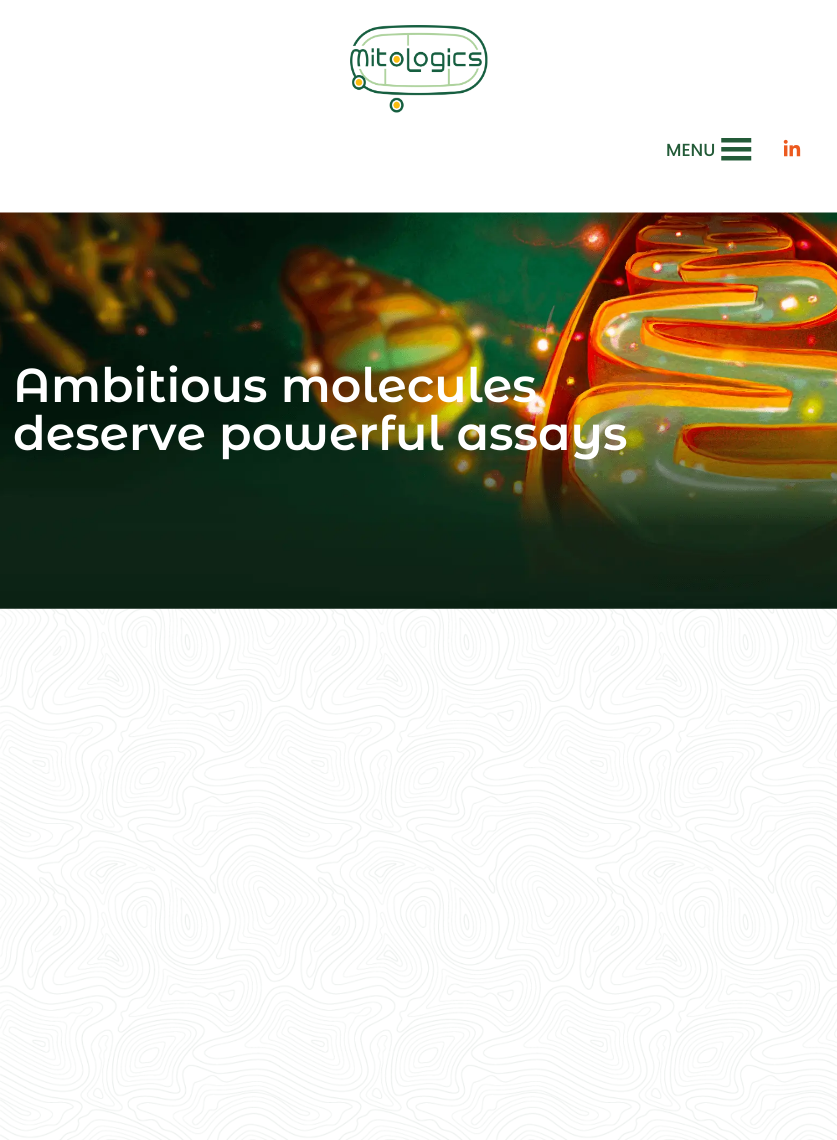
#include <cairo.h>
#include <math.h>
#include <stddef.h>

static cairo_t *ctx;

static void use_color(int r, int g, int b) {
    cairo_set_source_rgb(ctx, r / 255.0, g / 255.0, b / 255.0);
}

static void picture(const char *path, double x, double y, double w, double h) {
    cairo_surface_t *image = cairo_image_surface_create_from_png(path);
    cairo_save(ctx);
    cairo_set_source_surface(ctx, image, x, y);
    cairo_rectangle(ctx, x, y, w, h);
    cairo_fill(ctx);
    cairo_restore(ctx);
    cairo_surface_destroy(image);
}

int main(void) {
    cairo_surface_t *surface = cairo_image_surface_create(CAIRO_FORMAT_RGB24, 837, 1140);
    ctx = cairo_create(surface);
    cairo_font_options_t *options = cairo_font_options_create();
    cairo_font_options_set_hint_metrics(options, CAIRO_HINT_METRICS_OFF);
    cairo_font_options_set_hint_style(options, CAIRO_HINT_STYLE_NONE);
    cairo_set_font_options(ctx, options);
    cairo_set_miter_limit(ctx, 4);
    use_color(255, 255, 255);
    cairo_paint(ctx);
    picture("img1.png", 350, 25, 138, 88);
    cairo_select_font_face(ctx, "Poppins Medium", CAIRO_FONT_SLANT_NORMAL, CAIRO_FONT_WEIGHT_NORMAL);
    cairo_set_font_size(ctx, 17.5);
    use_color(35, 91, 56);
    cairo_move_to(ctx, 666, 156);
    cairo_show_text(ctx, "MENU");
    picture("img2.png", 721, 138, 31, 23);
    picture("img3.png", 783, 139, 18, 18);
    picture("img4.png", 0, 608, 837, 532);
    picture("img5.png", 0, 212, 837, 397);
    cairo_select_font_face(ctx, "Montserrat Alternates SemiBold", CAIRO_FONT_SLANT_NORMAL, CAIRO_FONT_WEIGHT_NORMAL);
    cairo_set_font_size(ctx, 47.5);
    use_color(255, 255, 255);
    cairo_move_to(ctx, 13, 402);
    cairo_show_text(ctx, "Ambitious molecules");
    cairo_move_to(ctx, 13, 450);
    cairo_show_text(ctx, "deserve powerful assays");
    cairo_surface_write_to_png(surface, "result.png");
    cairo_font_options_destroy(options);
    cairo_destroy(ctx);
    cairo_surface_destroy(surface);
    return 0;
}
